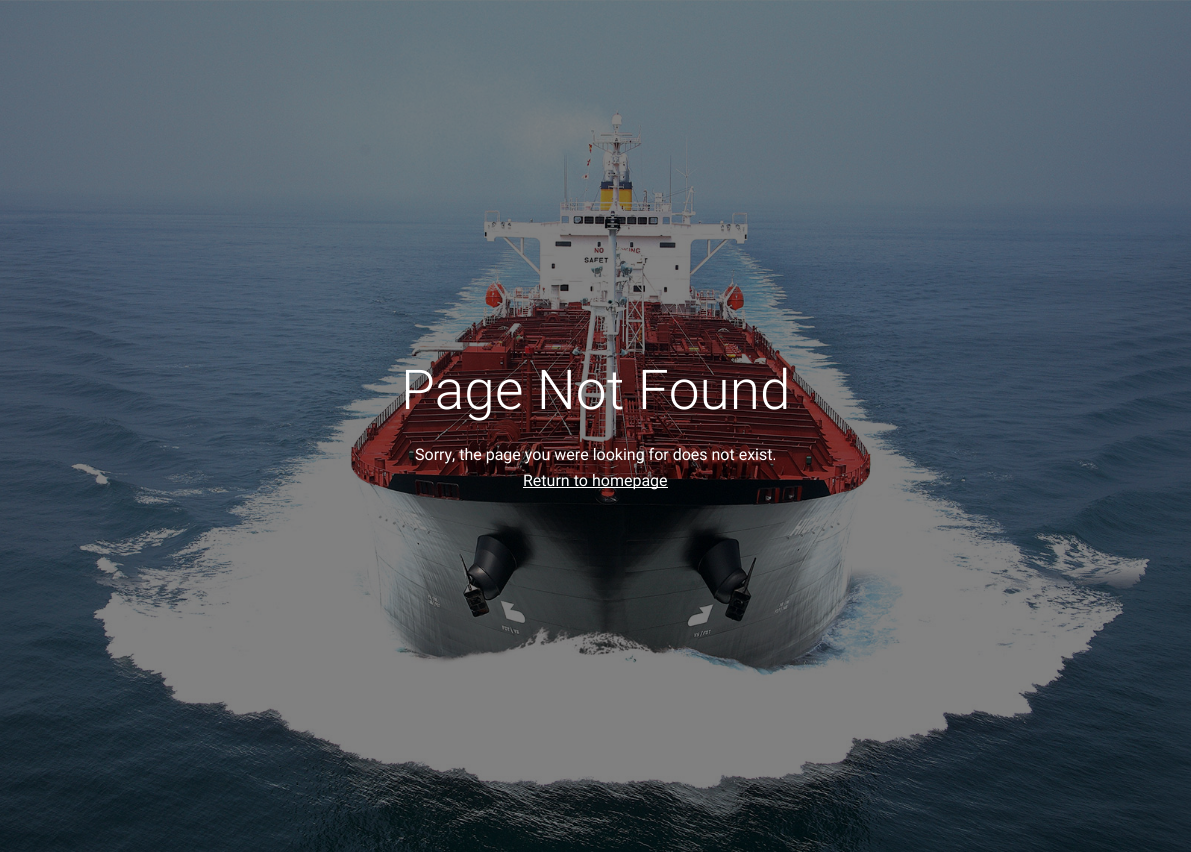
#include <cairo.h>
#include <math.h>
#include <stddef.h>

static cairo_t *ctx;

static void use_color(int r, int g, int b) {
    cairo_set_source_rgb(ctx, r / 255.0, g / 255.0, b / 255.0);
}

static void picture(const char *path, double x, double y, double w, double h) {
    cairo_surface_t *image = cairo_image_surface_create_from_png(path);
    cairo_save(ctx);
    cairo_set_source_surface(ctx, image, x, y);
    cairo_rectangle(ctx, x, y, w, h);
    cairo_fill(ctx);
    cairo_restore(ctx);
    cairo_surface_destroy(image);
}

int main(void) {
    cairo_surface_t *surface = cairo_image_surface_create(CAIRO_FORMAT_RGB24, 1191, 852);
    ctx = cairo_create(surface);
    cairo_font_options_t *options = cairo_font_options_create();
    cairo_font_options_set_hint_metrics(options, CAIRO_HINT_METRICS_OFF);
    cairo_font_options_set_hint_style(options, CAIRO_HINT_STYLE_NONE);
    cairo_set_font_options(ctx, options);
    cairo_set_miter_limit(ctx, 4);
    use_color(255, 255, 255);
    cairo_paint(ctx);
    picture("img1.png", 0, 0, 1191, 852);
    cairo_select_font_face(ctx, "Roboto Light", CAIRO_FONT_SLANT_NORMAL, CAIRO_FONT_WEIGHT_NORMAL);
    cairo_set_font_size(ctx, 55);
    use_color(255, 255, 255);
    cairo_move_to(ctx, 401, 409);
    cairo_show_text(ctx, "Page Not Found");
    cairo_select_font_face(ctx, "Roboto", CAIRO_FONT_SLANT_NORMAL, CAIRO_FONT_WEIGHT_NORMAL);
    cairo_set_font_size(ctx, 16);
    cairo_move_to(ctx, 415, 460);
    cairo_show_text(ctx, "Sorry, the page you were looking for does not exist.");
    cairo_rectangle(ctx, 523, 487, 145, 1);
    cairo_fill(ctx);
    cairo_move_to(ctx, 523, 486);
    cairo_show_text(ctx, "Return to homepage");
    cairo_surface_write_to_png(surface, "result.png");
    cairo_font_options_destroy(options);
    cairo_destroy(ctx);
    cairo_surface_destroy(surface);
    return 0;
}
